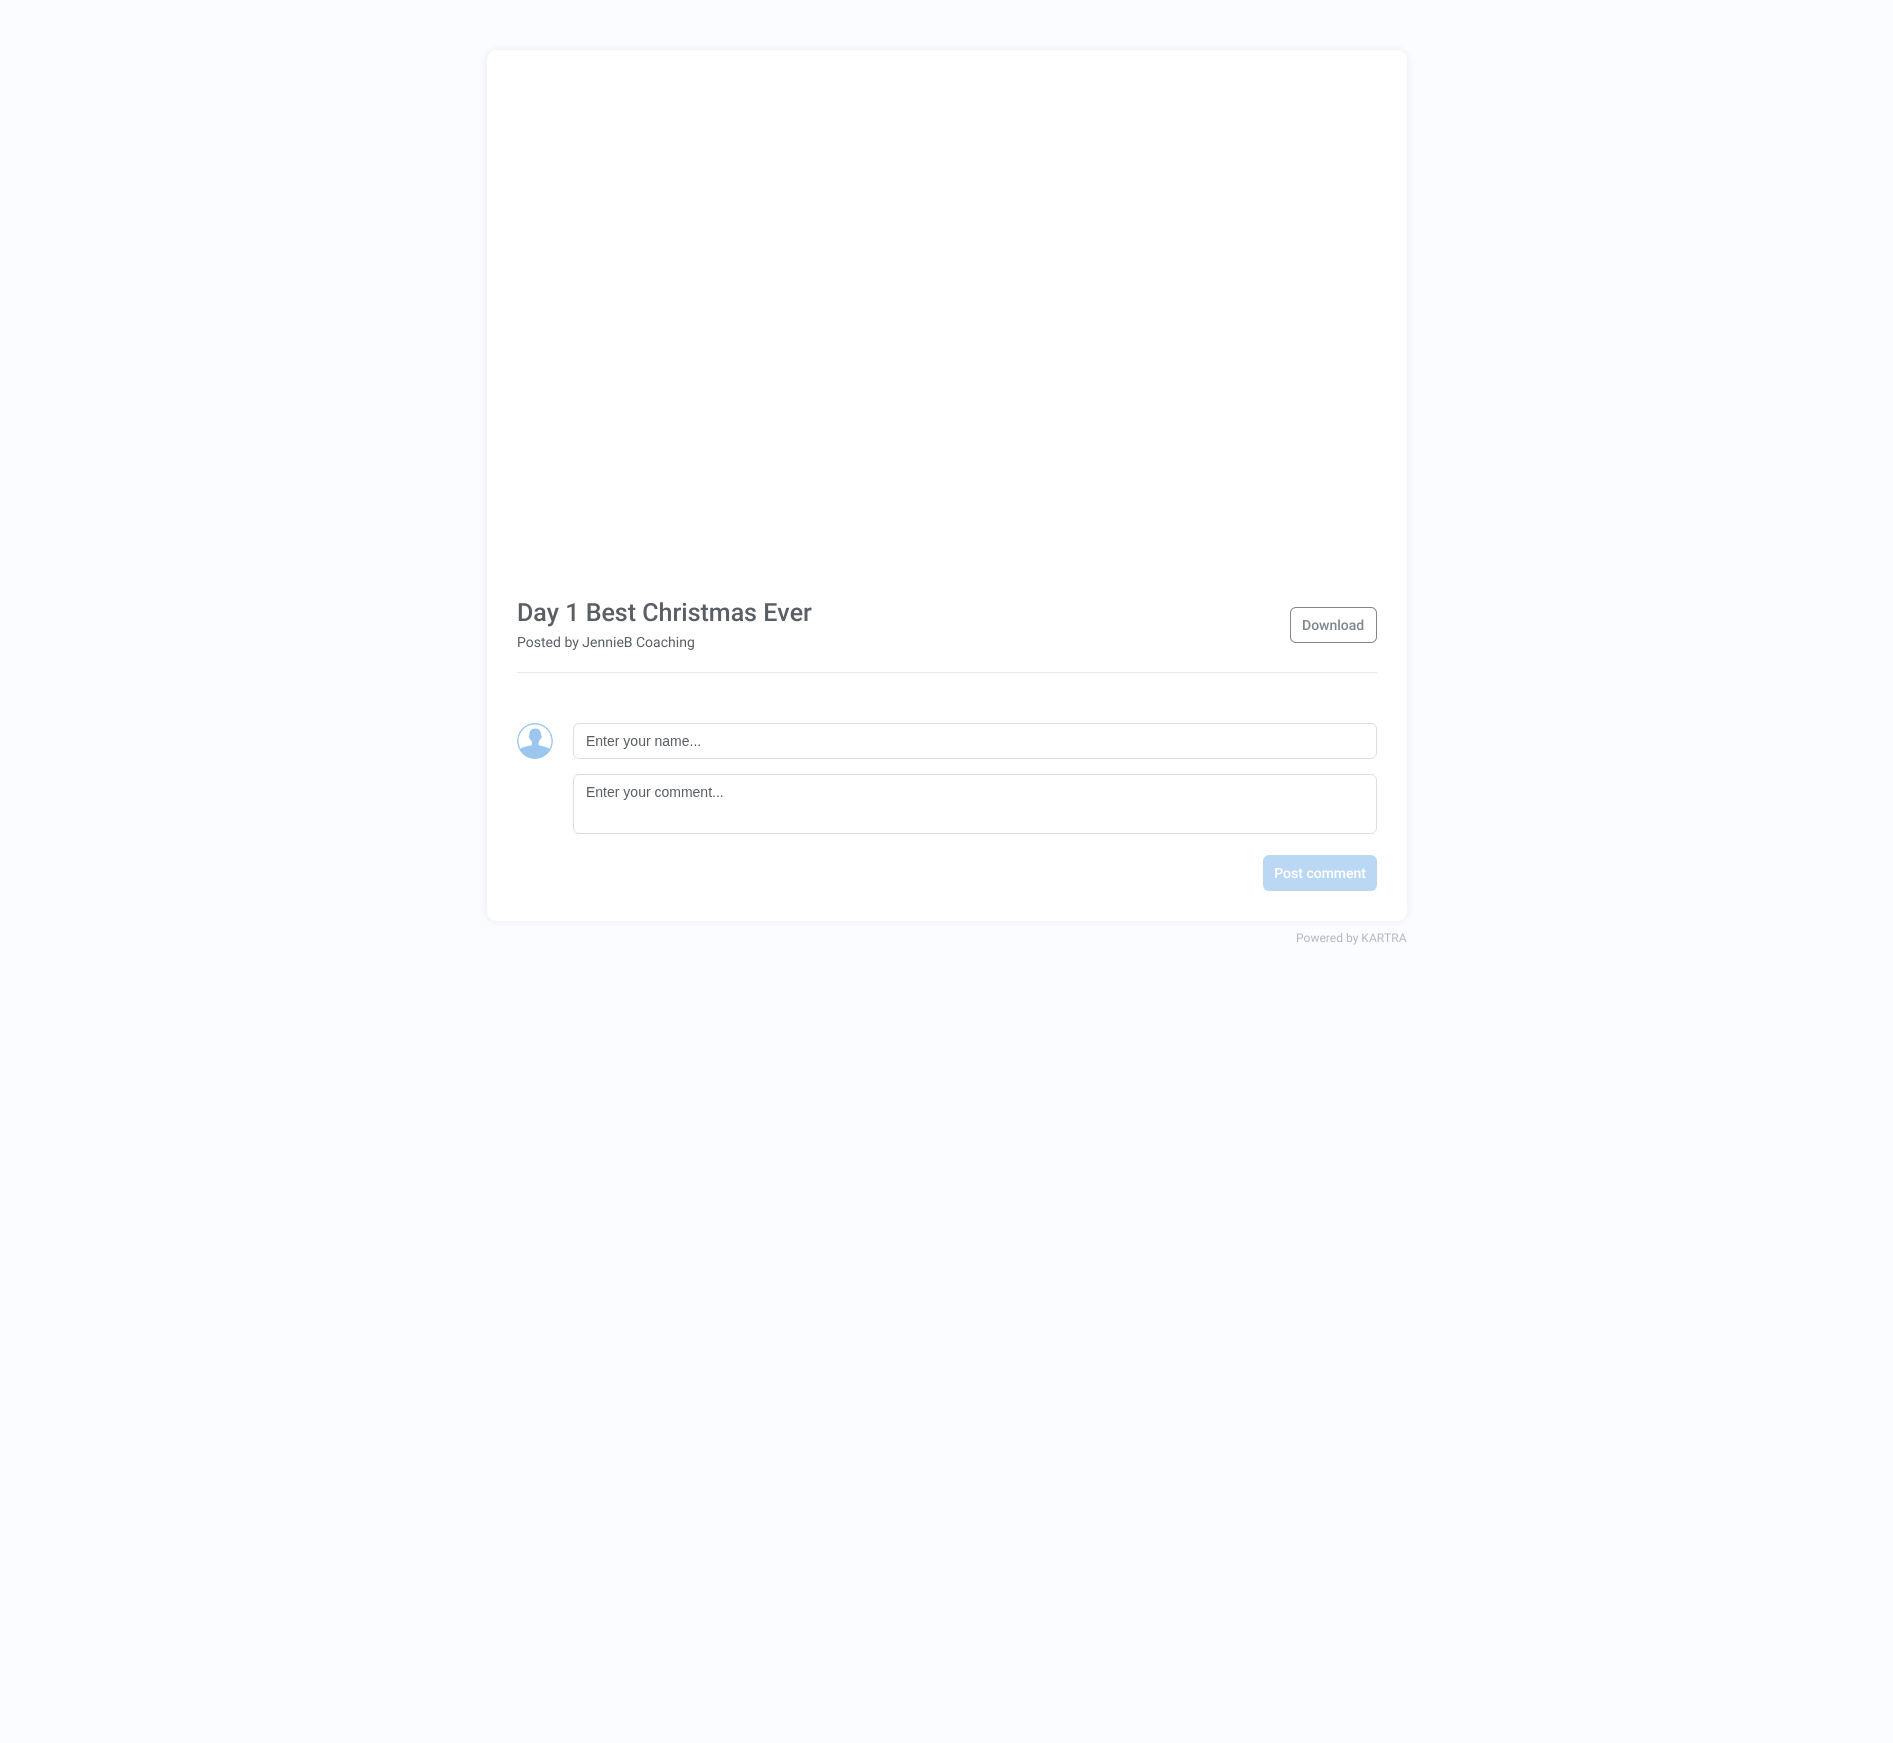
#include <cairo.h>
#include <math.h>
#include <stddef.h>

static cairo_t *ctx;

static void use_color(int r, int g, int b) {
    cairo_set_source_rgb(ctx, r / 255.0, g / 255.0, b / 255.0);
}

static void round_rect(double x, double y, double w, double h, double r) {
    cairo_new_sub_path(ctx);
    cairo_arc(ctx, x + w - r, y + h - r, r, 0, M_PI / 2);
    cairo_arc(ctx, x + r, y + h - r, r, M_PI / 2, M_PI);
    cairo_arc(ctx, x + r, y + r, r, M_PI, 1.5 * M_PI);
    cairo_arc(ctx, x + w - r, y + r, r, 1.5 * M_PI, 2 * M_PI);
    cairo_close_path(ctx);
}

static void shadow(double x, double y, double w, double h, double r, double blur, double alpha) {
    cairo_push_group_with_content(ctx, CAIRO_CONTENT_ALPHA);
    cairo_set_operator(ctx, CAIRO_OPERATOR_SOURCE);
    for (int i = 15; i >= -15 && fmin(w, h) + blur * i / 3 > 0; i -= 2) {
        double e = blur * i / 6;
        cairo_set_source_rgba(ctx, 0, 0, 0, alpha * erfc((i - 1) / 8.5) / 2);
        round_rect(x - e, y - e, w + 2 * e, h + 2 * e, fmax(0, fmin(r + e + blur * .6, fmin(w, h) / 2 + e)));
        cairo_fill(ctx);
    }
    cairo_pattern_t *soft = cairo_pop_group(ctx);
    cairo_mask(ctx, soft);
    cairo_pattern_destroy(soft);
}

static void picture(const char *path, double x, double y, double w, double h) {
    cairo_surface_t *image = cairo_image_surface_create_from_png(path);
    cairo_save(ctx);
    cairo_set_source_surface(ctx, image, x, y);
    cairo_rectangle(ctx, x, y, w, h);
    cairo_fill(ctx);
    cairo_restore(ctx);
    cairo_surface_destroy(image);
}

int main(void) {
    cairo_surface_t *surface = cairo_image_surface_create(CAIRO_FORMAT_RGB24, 1893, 1743);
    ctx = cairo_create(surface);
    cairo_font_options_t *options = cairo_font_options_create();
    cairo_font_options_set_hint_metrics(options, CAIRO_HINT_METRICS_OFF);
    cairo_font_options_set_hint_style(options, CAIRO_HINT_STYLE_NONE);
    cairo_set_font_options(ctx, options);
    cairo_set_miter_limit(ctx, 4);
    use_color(251, 252, 255);
    cairo_paint(ctx);
    use_color(0, 0, 0);
    shadow(487, 50, 920, 871, 10, 5, 0.07);
    use_color(255, 255, 255);
    round_rect(487, 50, 920, 871, 10);
    cairo_fill(ctx);
    cairo_select_font_face(ctx, "Roboto Medium", CAIRO_FONT_SLANT_NORMAL, CAIRO_FONT_WEIGHT_NORMAL);
    cairo_set_font_size(ctx, 25);
    use_color(89, 95, 101);
    cairo_move_to(ctx, 517, 621);
    cairo_show_text(ctx, "Day 1 Best Christmas Ever");
    cairo_select_font_face(ctx, "Roboto", CAIRO_FONT_SLANT_NORMAL, CAIRO_FONT_WEIGHT_NORMAL);
    cairo_set_font_size(ctx, 14);
    cairo_move_to(ctx, 517, 647);
    cairo_show_text(ctx, "Posted by JennieB Coaching");
    round_rect(1290.5, 607.5, 86, 35, 5.5);
    use_color(125, 133, 141);
    cairo_set_line_width(ctx, 1);
    cairo_stroke(ctx);
    cairo_select_font_face(ctx, "Roboto Medium", CAIRO_FONT_SLANT_NORMAL, CAIRO_FONT_WEIGHT_NORMAL);
    cairo_move_to(ctx, 1302, 630);
    cairo_show_text(ctx, "Download");
    use_color(234, 235, 236);
    cairo_rectangle(ctx, 517, 672, 860, 1);
    cairo_fill(ctx);
    picture("img1.png", 517, 723, 860, 168);
    cairo_select_font_face(ctx, "Roboto", CAIRO_FONT_SLANT_NORMAL, CAIRO_FONT_WEIGHT_NORMAL);
    cairo_set_font_size(ctx, 12);
    use_color(179, 184, 189);
    cairo_move_to(ctx, 1296, 942);
    cairo_show_text(ctx, "Powered by KARTRA");
    cairo_surface_write_to_png(surface, "result.png");
    cairo_font_options_destroy(options);
    cairo_destroy(ctx);
    cairo_surface_destroy(surface);
    return 0;
}
